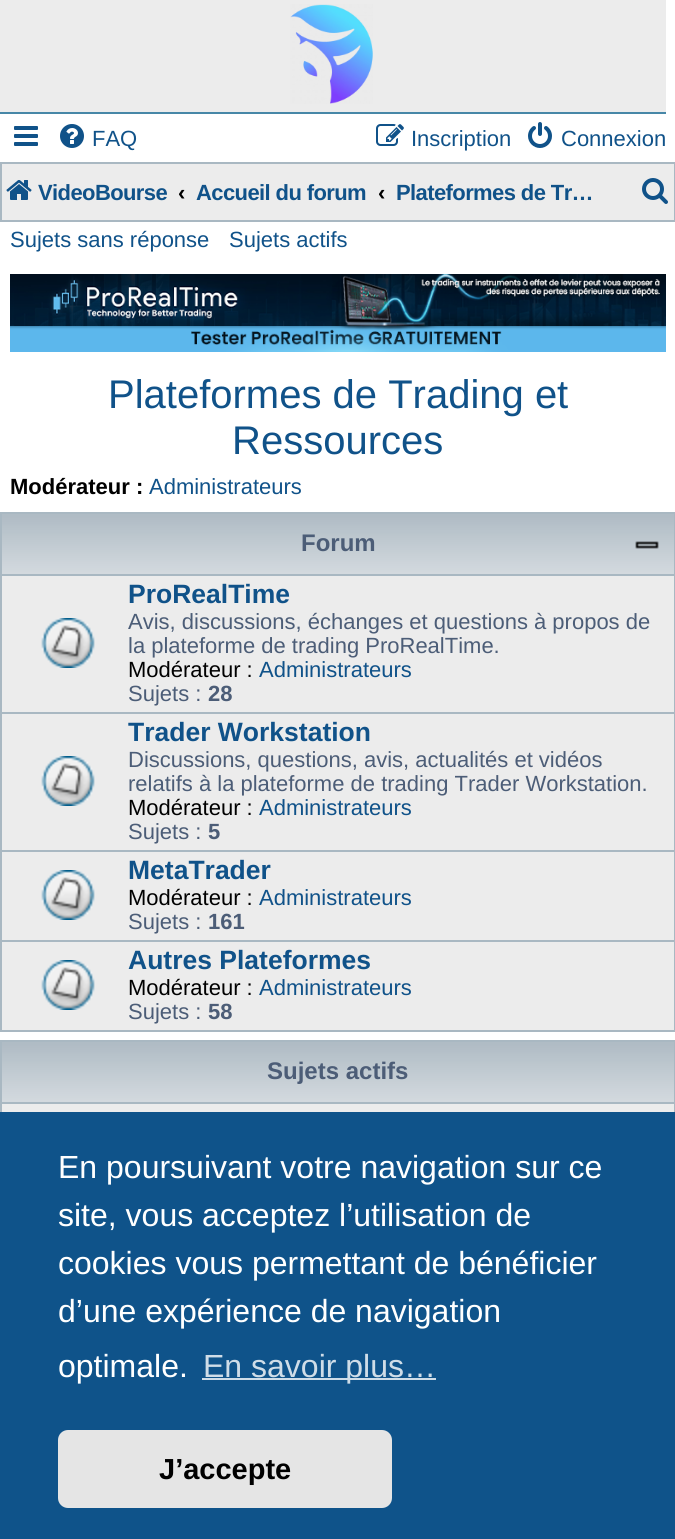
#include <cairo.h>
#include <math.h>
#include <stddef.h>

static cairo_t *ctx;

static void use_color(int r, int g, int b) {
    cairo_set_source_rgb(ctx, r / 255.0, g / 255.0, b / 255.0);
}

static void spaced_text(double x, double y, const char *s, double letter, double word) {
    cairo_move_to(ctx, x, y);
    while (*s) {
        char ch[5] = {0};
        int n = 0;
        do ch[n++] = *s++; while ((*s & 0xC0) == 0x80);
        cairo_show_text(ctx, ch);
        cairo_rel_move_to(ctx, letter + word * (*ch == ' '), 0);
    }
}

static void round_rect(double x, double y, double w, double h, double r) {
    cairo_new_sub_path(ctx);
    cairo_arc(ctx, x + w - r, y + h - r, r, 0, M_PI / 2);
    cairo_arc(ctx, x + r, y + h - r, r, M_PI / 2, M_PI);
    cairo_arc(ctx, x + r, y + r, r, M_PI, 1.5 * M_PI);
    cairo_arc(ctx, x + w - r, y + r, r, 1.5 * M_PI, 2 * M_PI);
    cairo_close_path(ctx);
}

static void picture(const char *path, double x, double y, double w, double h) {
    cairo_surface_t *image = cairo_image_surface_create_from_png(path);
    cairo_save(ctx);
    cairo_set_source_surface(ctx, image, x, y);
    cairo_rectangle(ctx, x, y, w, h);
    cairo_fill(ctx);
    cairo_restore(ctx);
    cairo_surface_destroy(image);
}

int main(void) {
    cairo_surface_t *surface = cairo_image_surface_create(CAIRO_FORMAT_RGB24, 675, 1539);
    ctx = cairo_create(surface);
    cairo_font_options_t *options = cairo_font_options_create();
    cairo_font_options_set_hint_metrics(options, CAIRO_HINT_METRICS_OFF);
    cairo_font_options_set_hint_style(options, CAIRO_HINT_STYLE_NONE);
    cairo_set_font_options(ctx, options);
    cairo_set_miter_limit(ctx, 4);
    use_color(255, 255, 255);
    cairo_paint(ctx);
    use_color(236, 236, 236);
    cairo_rectangle(ctx, 0, 0, 666, 112);
    cairo_fill(ctx);
    use_color(71, 135, 167);
    cairo_rectangle(ctx, 0, 112, 666, 2);
    cairo_fill(ctx);
    picture("img1.png", 290, 4, 83, 100);
    picture("img2.png", 14, 126, 24, 20);
    picture("img3.png", 60, 124, 24, 24);
    cairo_select_font_face(ctx, "Liberation Sans", CAIRO_FONT_SLANT_NORMAL, CAIRO_FONT_WEIGHT_NORMAL);
    cairo_set_font_size(ctx, 22);
    use_color(16, 82, 137);
    cairo_move_to(ctx, 92, 146);
    cairo_show_text(ctx, "FAQ");
    picture("img4.png", 376, 124, 28, 22);
    cairo_move_to(ctx, 411, 146);
    cairo_show_text(ctx, "Inscription");
    picture("img5.png", 528, 122, 24, 26);
    cairo_move_to(ctx, 561, 146);
    cairo_show_text(ctx, "Connexion");
    use_color(236, 236, 236);
    cairo_rectangle(ctx, 1, 163, 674, 58);
    cairo_fill_preserve(ctx);
    use_color(169, 184, 194);
    cairo_stroke(ctx);
    picture("img6.png", 6, 180, 26, 20);
    cairo_select_font_face(ctx, "Liberation Sans", CAIRO_FONT_SLANT_NORMAL, CAIRO_FONT_WEIGHT_BOLD);
    use_color(16, 82, 137);
    spaced_text(38, 200, "VideoBourse", -0.6, 0);
    use_color(0, 0, 0);
    cairo_move_to(ctx, 178, 200);
    cairo_show_text(ctx, "‹");
    use_color(16, 82, 137);
    spaced_text(196, 200, "Accueil du forum", -0.6, 0);
    use_color(0, 0, 0);
    cairo_move_to(ctx, 378, 200);
    cairo_show_text(ctx, "‹");
    use_color(16, 82, 137);
    spaced_text(396, 200, "Plateformes de Tr…", -0.6, 0);
    picture("img7.png", 642, 178, 26, 26);
    cairo_select_font_face(ctx, "Liberation Sans", CAIRO_FONT_SLANT_NORMAL, CAIRO_FONT_WEIGHT_NORMAL);
    cairo_move_to(ctx, 10, 247);
    cairo_show_text(ctx, "Sujets sans réponse");
    cairo_move_to(ctx, 229, 247);
    cairo_show_text(ctx, "Sujets actifs");
    picture("img8.png", 10, 274, 656, 78);
    cairo_set_font_size(ctx, 40);
    cairo_move_to(ctx, 108, 408);
    cairo_show_text(ctx, "Plateformes de Trading et");
    cairo_move_to(ctx, 232, 454);
    cairo_show_text(ctx, "Ressources");
    cairo_select_font_face(ctx, "Liberation Sans", CAIRO_FONT_SLANT_NORMAL, CAIRO_FONT_WEIGHT_BOLD);
    cairo_set_font_size(ctx, 22);
    use_color(0, 0, 0);
    cairo_move_to(ctx, 10, 494);
    cairo_show_text(ctx, "Modérateur :");
    cairo_select_font_face(ctx, "Liberation Sans", CAIRO_FONT_SLANT_NORMAL, CAIRO_FONT_WEIGHT_NORMAL);
    use_color(16, 82, 137);
    cairo_move_to(ctx, 149, 494);
    cairo_show_text(ctx, "Administrateurs");
    use_color(236, 236, 236);
    cairo_rectangle(ctx, 2, 576, 672, 454);
    cairo_fill(ctx);
    picture("img9.png", 2, 514, 672, 60);
    cairo_rectangle(ctx, 1, 513, 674, 518);
    use_color(169, 184, 194);
    cairo_stroke(ctx);
    cairo_select_font_face(ctx, "Liberation Sans", CAIRO_FONT_SLANT_NORMAL, CAIRO_FONT_WEIGHT_BOLD);
    cairo_set_font_size(ctx, 24);
    use_color(76, 93, 119);
    cairo_move_to(ctx, 301, 551);
    cairo_show_text(ctx, "Forum");
    picture("img10.png", 635, 541, 24, 8);
    use_color(169, 184, 194);
    cairo_rectangle(ctx, 2, 574, 672, 2);
    cairo_fill(ctx);
    picture("img11.png", 41, 618, 54, 50);
    cairo_set_font_size(ctx, 26.5);
    use_color(16, 82, 137);
    cairo_move_to(ctx, 128, 603);
    cairo_show_text(ctx, "ProRealTime");
    cairo_select_font_face(ctx, "Liberation Sans", CAIRO_FONT_SLANT_NORMAL, CAIRO_FONT_WEIGHT_NORMAL);
    cairo_set_font_size(ctx, 22);
    use_color(76, 93, 119);
    cairo_move_to(ctx, 128, 629);
    cairo_show_text(ctx, "Avis, discussions, échanges et questions à propos de");
    cairo_move_to(ctx, 128, 653);
    cairo_show_text(ctx, "la plateforme de trading ProRealTime.");
    use_color(0, 0, 0);
    cairo_move_to(ctx, 128, 677);
    cairo_show_text(ctx, "Modérateur :");
    use_color(16, 82, 137);
    cairo_move_to(ctx, 259, 677);
    cairo_show_text(ctx, "Administrateurs");
    use_color(76, 93, 119);
    cairo_move_to(ctx, 128, 701);
    cairo_show_text(ctx, "Sujets :");
    cairo_select_font_face(ctx, "Liberation Sans", CAIRO_FONT_SLANT_NORMAL, CAIRO_FONT_WEIGHT_BOLD);
    cairo_move_to(ctx, 208, 701);
    cairo_show_text(ctx, "28");
    use_color(169, 184, 194);
    cairo_rectangle(ctx, 2, 712, 672, 2);
    cairo_fill(ctx);
    picture("img11.png", 41, 756, 54, 50);
    cairo_set_font_size(ctx, 26.5);
    use_color(16, 82, 137);
    cairo_move_to(ctx, 128, 741);
    cairo_show_text(ctx, "Trader Workstation");
    cairo_select_font_face(ctx, "Liberation Sans", CAIRO_FONT_SLANT_NORMAL, CAIRO_FONT_WEIGHT_NORMAL);
    cairo_set_font_size(ctx, 22);
    use_color(76, 93, 119);
    cairo_move_to(ctx, 128, 767);
    cairo_show_text(ctx, "Discussions, questions, avis, actualités et vidéos");
    cairo_move_to(ctx, 128, 791);
    cairo_show_text(ctx, "relatifs à la plateforme de trading Trader Workstation.");
    use_color(0, 0, 0);
    cairo_move_to(ctx, 128, 815);
    cairo_show_text(ctx, "Modérateur :");
    use_color(16, 82, 137);
    cairo_move_to(ctx, 259, 815);
    cairo_show_text(ctx, "Administrateurs");
    use_color(76, 93, 119);
    cairo_move_to(ctx, 128, 839);
    cairo_show_text(ctx, "Sujets :");
    cairo_select_font_face(ctx, "Liberation Sans", CAIRO_FONT_SLANT_NORMAL, CAIRO_FONT_WEIGHT_BOLD);
    cairo_move_to(ctx, 208, 839);
    cairo_show_text(ctx, "5");
    use_color(169, 184, 194);
    cairo_rectangle(ctx, 2, 850, 672, 2);
    cairo_fill(ctx);
    picture("img11.png", 41, 870, 54, 50);
    cairo_set_font_size(ctx, 26.5);
    use_color(16, 82, 137);
    cairo_move_to(ctx, 128, 879);
    cairo_show_text(ctx, "MetaTrader");
    cairo_select_font_face(ctx, "Liberation Sans", CAIRO_FONT_SLANT_NORMAL, CAIRO_FONT_WEIGHT_NORMAL);
    cairo_set_font_size(ctx, 22);
    use_color(0, 0, 0);
    cairo_move_to(ctx, 128, 905);
    cairo_show_text(ctx, "Modérateur :");
    use_color(16, 82, 137);
    cairo_move_to(ctx, 259, 905);
    cairo_show_text(ctx, "Administrateurs");
    use_color(76, 93, 119);
    cairo_move_to(ctx, 128, 929);
    cairo_show_text(ctx, "Sujets :");
    cairo_select_font_face(ctx, "Liberation Sans", CAIRO_FONT_SLANT_NORMAL, CAIRO_FONT_WEIGHT_BOLD);
    cairo_move_to(ctx, 208, 929);
    cairo_show_text(ctx, "161");
    use_color(169, 184, 194);
    cairo_rectangle(ctx, 2, 940, 672, 2);
    cairo_fill(ctx);
    picture("img11.png", 41, 960, 54, 50);
    cairo_set_font_size(ctx, 26.5);
    use_color(16, 82, 137);
    cairo_move_to(ctx, 128, 969);
    cairo_show_text(ctx, "Autres Plateformes");
    cairo_select_font_face(ctx, "Liberation Sans", CAIRO_FONT_SLANT_NORMAL, CAIRO_FONT_WEIGHT_NORMAL);
    cairo_set_font_size(ctx, 22);
    use_color(0, 0, 0);
    cairo_move_to(ctx, 128, 995);
    cairo_show_text(ctx, "Modérateur :");
    use_color(16, 82, 137);
    cairo_move_to(ctx, 259, 995);
    cairo_show_text(ctx, "Administrateurs");
    use_color(76, 93, 119);
    cairo_move_to(ctx, 128, 1019);
    cairo_show_text(ctx, "Sujets :");
    cairo_select_font_face(ctx, "Liberation Sans", CAIRO_FONT_SLANT_NORMAL, CAIRO_FONT_WEIGHT_BOLD);
    cairo_move_to(ctx, 208, 1019);
    cairo_show_text(ctx, "58");
    use_color(236, 236, 236);
    cairo_rectangle(ctx, 2, 1104, 672, 8);
    cairo_fill(ctx);
    picture("img9.png", 2, 1042, 672, 60);
    cairo_rectangle(ctx, 1, 1041, 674, 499);
    use_color(169, 184, 194);
    cairo_stroke(ctx);
    cairo_set_font_size(ctx, 24);
    use_color(76, 93, 119);
    cairo_move_to(ctx, 267, 1079);
    cairo_show_text(ctx, "Sujets actifs");
    use_color(169, 184, 194);
    cairo_rectangle(ctx, 2, 1102, 672, 2);
    cairo_fill(ctx);
    use_color(15, 83, 138);
    cairo_rectangle(ctx, 0, 1112, 675, 427);
    cairo_fill(ctx);
    cairo_select_font_face(ctx, "Liberation Sans", CAIRO_FONT_SLANT_NORMAL, CAIRO_FONT_WEIGHT_NORMAL);
    cairo_set_font_size(ctx, 32);
    use_color(255, 255, 255);
    cairo_move_to(ctx, 58, 1178);
    cairo_show_text(ctx, "En poursuivant votre navigation sur ce");
    cairo_move_to(ctx, 58, 1226);
    cairo_show_text(ctx, "site, vous acceptez l’utilisation de");
    cairo_move_to(ctx, 58, 1274);
    cairo_show_text(ctx, "cookies vous permettant de bénéficier");
    cairo_move_to(ctx, 58, 1322);
    cairo_show_text(ctx, "d’une expérience de navigation");
    cairo_move_to(ctx, 58, 1377);
    cairo_show_text(ctx, "optimale.");
    use_color(207, 221, 232);
    cairo_rectangle(ctx, 202, 1378, 234, 2);
    cairo_fill(ctx);
    cairo_move_to(ctx, 203, 1377);
    cairo_show_text(ctx, "En savoir plus…");
    use_color(229, 229, 229);
    round_rect(58, 1430, 334, 78, 10);
    cairo_fill(ctx);
    cairo_select_font_face(ctx, "Liberation Sans", CAIRO_FONT_SLANT_NORMAL, CAIRO_FONT_WEIGHT_BOLD);
    cairo_set_font_size(ctx, 29);
    use_color(0, 0, 0);
    cairo_move_to(ctx, 159, 1479);
    cairo_show_text(ctx, "J’accepte");
    cairo_surface_write_to_png(surface, "result.png");
    cairo_font_options_destroy(options);
    cairo_destroy(ctx);
    cairo_surface_destroy(surface);
    return 0;
}
